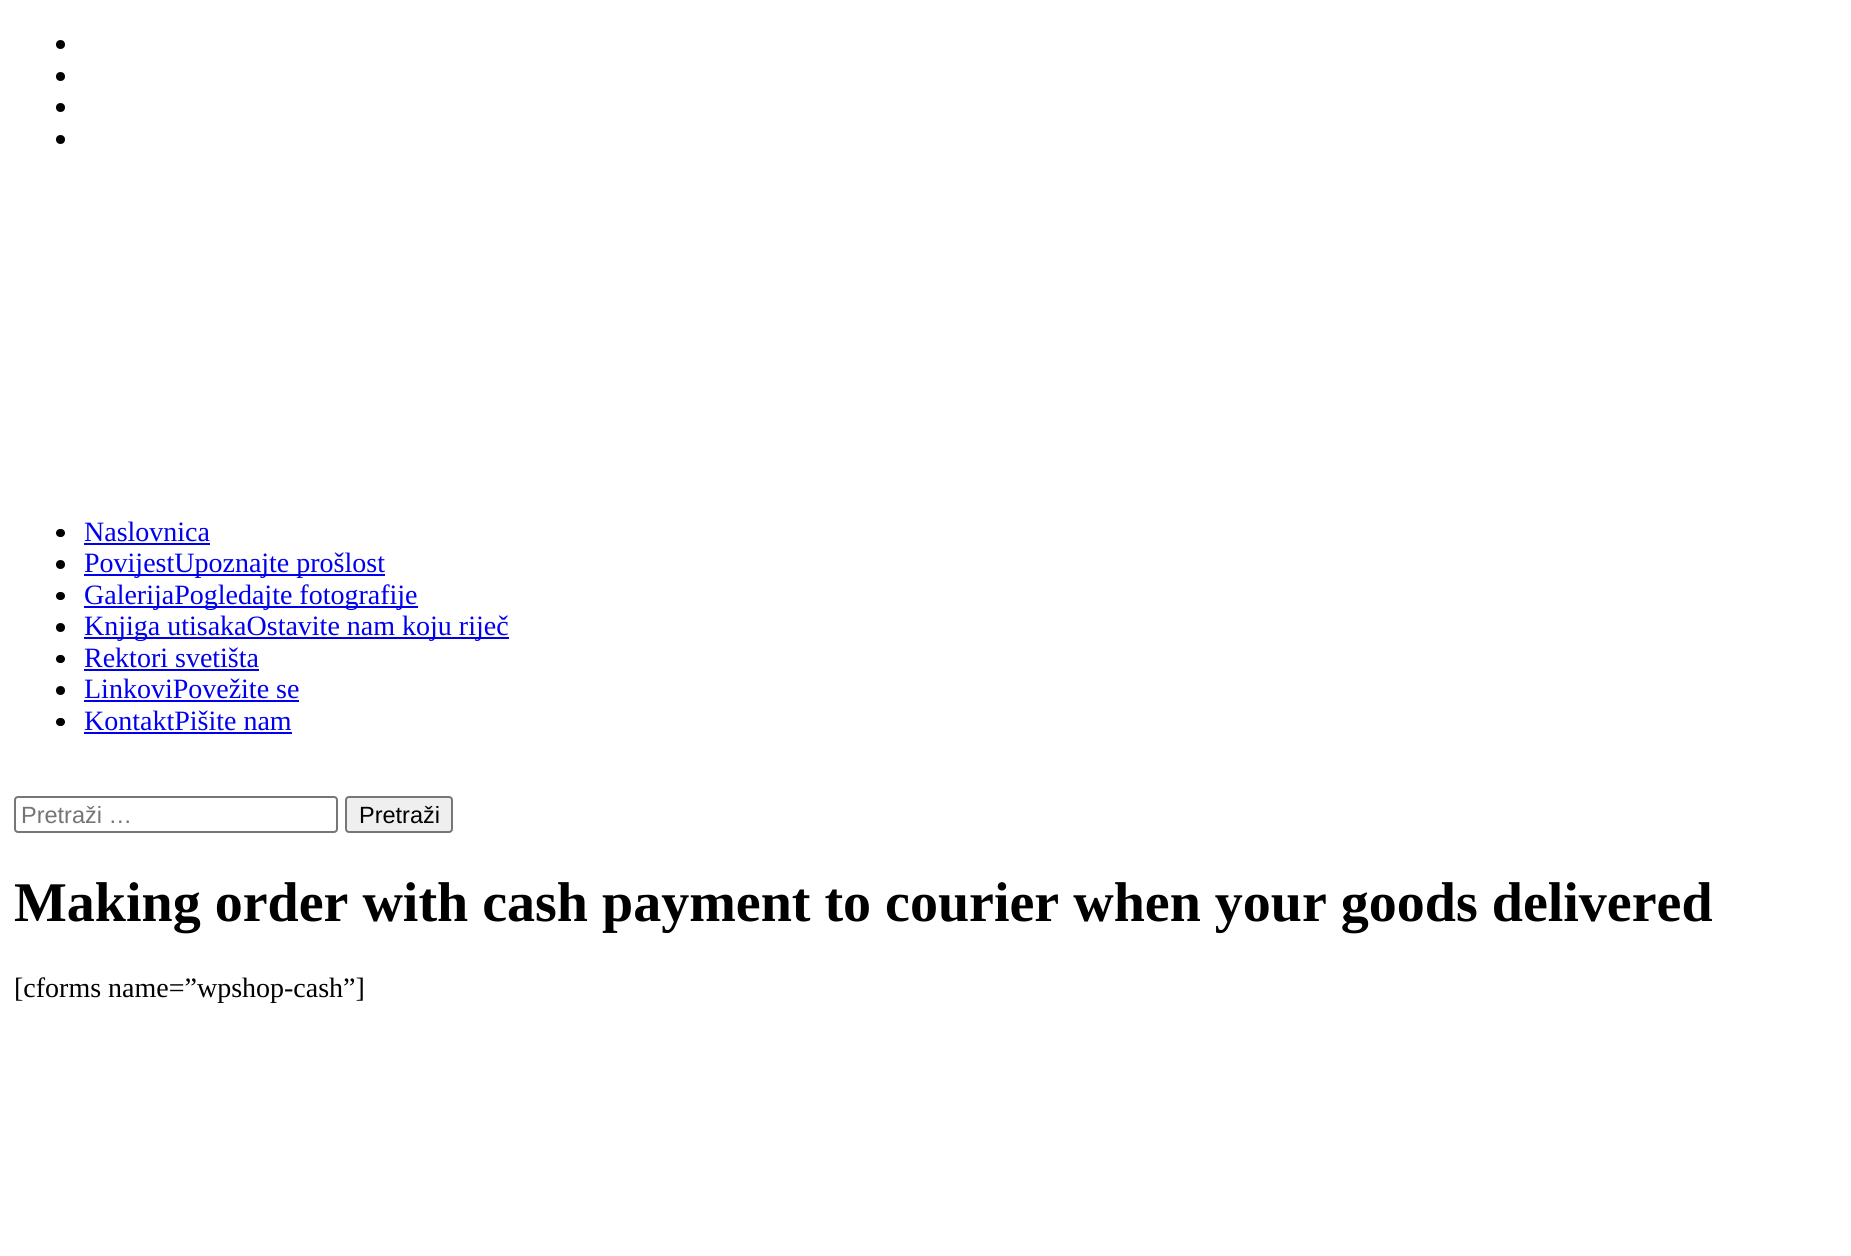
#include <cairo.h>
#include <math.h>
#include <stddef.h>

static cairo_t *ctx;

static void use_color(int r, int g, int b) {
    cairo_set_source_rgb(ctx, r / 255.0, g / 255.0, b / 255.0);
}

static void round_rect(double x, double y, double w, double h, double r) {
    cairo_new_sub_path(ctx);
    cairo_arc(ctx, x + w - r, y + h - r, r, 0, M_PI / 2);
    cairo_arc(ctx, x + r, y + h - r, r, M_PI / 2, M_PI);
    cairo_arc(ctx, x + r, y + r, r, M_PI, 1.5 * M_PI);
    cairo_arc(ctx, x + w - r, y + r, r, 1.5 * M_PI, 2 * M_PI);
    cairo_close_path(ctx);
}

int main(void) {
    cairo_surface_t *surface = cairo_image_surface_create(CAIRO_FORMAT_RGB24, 1851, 1256);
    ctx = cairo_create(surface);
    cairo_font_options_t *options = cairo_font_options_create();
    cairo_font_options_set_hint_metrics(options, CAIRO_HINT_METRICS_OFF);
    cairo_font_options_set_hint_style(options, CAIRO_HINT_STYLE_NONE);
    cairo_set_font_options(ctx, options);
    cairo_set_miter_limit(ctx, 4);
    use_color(255, 255, 255);
    cairo_paint(ctx);
    use_color(0, 0, 0);
    cairo_arc(ctx, 60.5, 44.5, 4.5, 0, 2 * M_PI);
    cairo_fill(ctx);
    cairo_arc(ctx, 60.5, 76.5, 4.5, 0, 2 * M_PI);
    cairo_fill(ctx);
    cairo_arc(ctx, 60.5, 107.5, 4.5, 0, 2 * M_PI);
    cairo_fill(ctx);
    cairo_arc(ctx, 60.5, 139.5, 4.5, 0, 2 * M_PI);
    cairo_fill(ctx);
    round_rect(56, 529, 9, 8, 4);
    cairo_fill(ctx);
    cairo_select_font_face(ctx, "Liberation Serif", CAIRO_FONT_SLANT_NORMAL, CAIRO_FONT_WEIGHT_NORMAL);
    cairo_set_font_size(ctx, 28);
    use_color(0, 0, 238);
    cairo_move_to(ctx, 84, 541);
    cairo_show_text(ctx, "Naslovnica");
    cairo_rectangle(ctx, 84, 543, 126, 2);
    cairo_fill(ctx);
    use_color(0, 0, 0);
    cairo_arc(ctx, 60.5, 564.5, 4.5, 0, 2 * M_PI);
    cairo_fill(ctx);
    use_color(0, 0, 238);
    cairo_rectangle(ctx, 84, 574, 301, 2);
    cairo_fill(ctx);
    cairo_move_to(ctx, 84, 572);
    cairo_show_text(ctx, "PovijestUpoznajte prošlost");
    use_color(0, 0, 0);
    round_rect(56, 592, 9, 8, 4);
    cairo_fill(ctx);
    use_color(0, 0, 238);
    cairo_rectangle(ctx, 84, 606, 334, 2);
    cairo_fill(ctx);
    cairo_move_to(ctx, 84, 604);
    cairo_show_text(ctx, "GalerijaPogledajte fotografije");
    use_color(0, 0, 0);
    cairo_new_path(ctx);
    cairo_arc(ctx, 60.5, 627.5, 4.5, 0, 2 * M_PI);
    cairo_fill(ctx);
    use_color(0, 0, 238);
    cairo_rectangle(ctx, 84, 637, 425, 2);
    cairo_fill(ctx);
    cairo_move_to(ctx, 84, 635);
    cairo_show_text(ctx, "Knjiga utisakaOstavite nam koju riječ");
    use_color(0, 0, 0);
    round_rect(56, 655, 9, 8, 4);
    cairo_fill(ctx);
    use_color(0, 0, 238);
    cairo_move_to(ctx, 84, 667);
    cairo_show_text(ctx, "Rektori svetišta");
    cairo_rectangle(ctx, 84, 669, 175, 2);
    cairo_fill(ctx);
    use_color(0, 0, 0);
    cairo_arc(ctx, 60.5, 690.5, 4.5, 0, 2 * M_PI);
    cairo_fill(ctx);
    use_color(0, 0, 238);
    cairo_move_to(ctx, 84, 698);
    cairo_show_text(ctx, "LinkoviPovežite se");
    cairo_rectangle(ctx, 84, 700, 215, 2);
    cairo_fill(ctx);
    use_color(0, 0, 0);
    round_rect(56, 718, 9, 8, 4);
    cairo_fill(ctx);
    use_color(0, 0, 238);
    cairo_move_to(ctx, 84, 730);
    cairo_show_text(ctx, "KontaktPišite nam");
    cairo_rectangle(ctx, 84, 732, 208, 2);
    cairo_fill(ctx);
    round_rect(15, 797, 322, 35, 3);
    use_color(118, 118, 118);
    cairo_stroke(ctx);
    cairo_select_font_face(ctx, "Liberation Sans", CAIRO_FONT_SLANT_NORMAL, CAIRO_FONT_WEIGHT_NORMAL);
    cairo_set_font_size(ctx, 23.5);
    use_color(117, 117, 117);
    cairo_move_to(ctx, 21, 823);
    cairo_show_text(ctx, "Pretraži …");
    use_color(239, 239, 239);
    round_rect(346, 797, 106, 35, 3);
    cairo_fill_preserve(ctx);
    use_color(118, 118, 118);
    cairo_stroke(ctx);
    use_color(0, 0, 0);
    cairo_move_to(ctx, 359, 823);
    cairo_show_text(ctx, "Pretraži");
    cairo_select_font_face(ctx, "Liberation Serif", CAIRO_FONT_SLANT_NORMAL, CAIRO_FONT_WEIGHT_BOLD);
    cairo_set_font_size(ctx, 56);
    cairo_move_to(ctx, 14, 921);
    cairo_show_text(ctx, "Making order with cash payment to courier when your goods delivered");
    cairo_select_font_face(ctx, "Liberation Serif", CAIRO_FONT_SLANT_NORMAL, CAIRO_FONT_WEIGHT_NORMAL);
    cairo_set_font_size(ctx, 28);
    cairo_move_to(ctx, 14, 997);
    cairo_show_text(ctx, "[cforms name=”wpshop-cash”]");
    cairo_surface_write_to_png(surface, "result.png");
    cairo_font_options_destroy(options);
    cairo_destroy(ctx);
    cairo_surface_destroy(surface);
    return 0;
}
